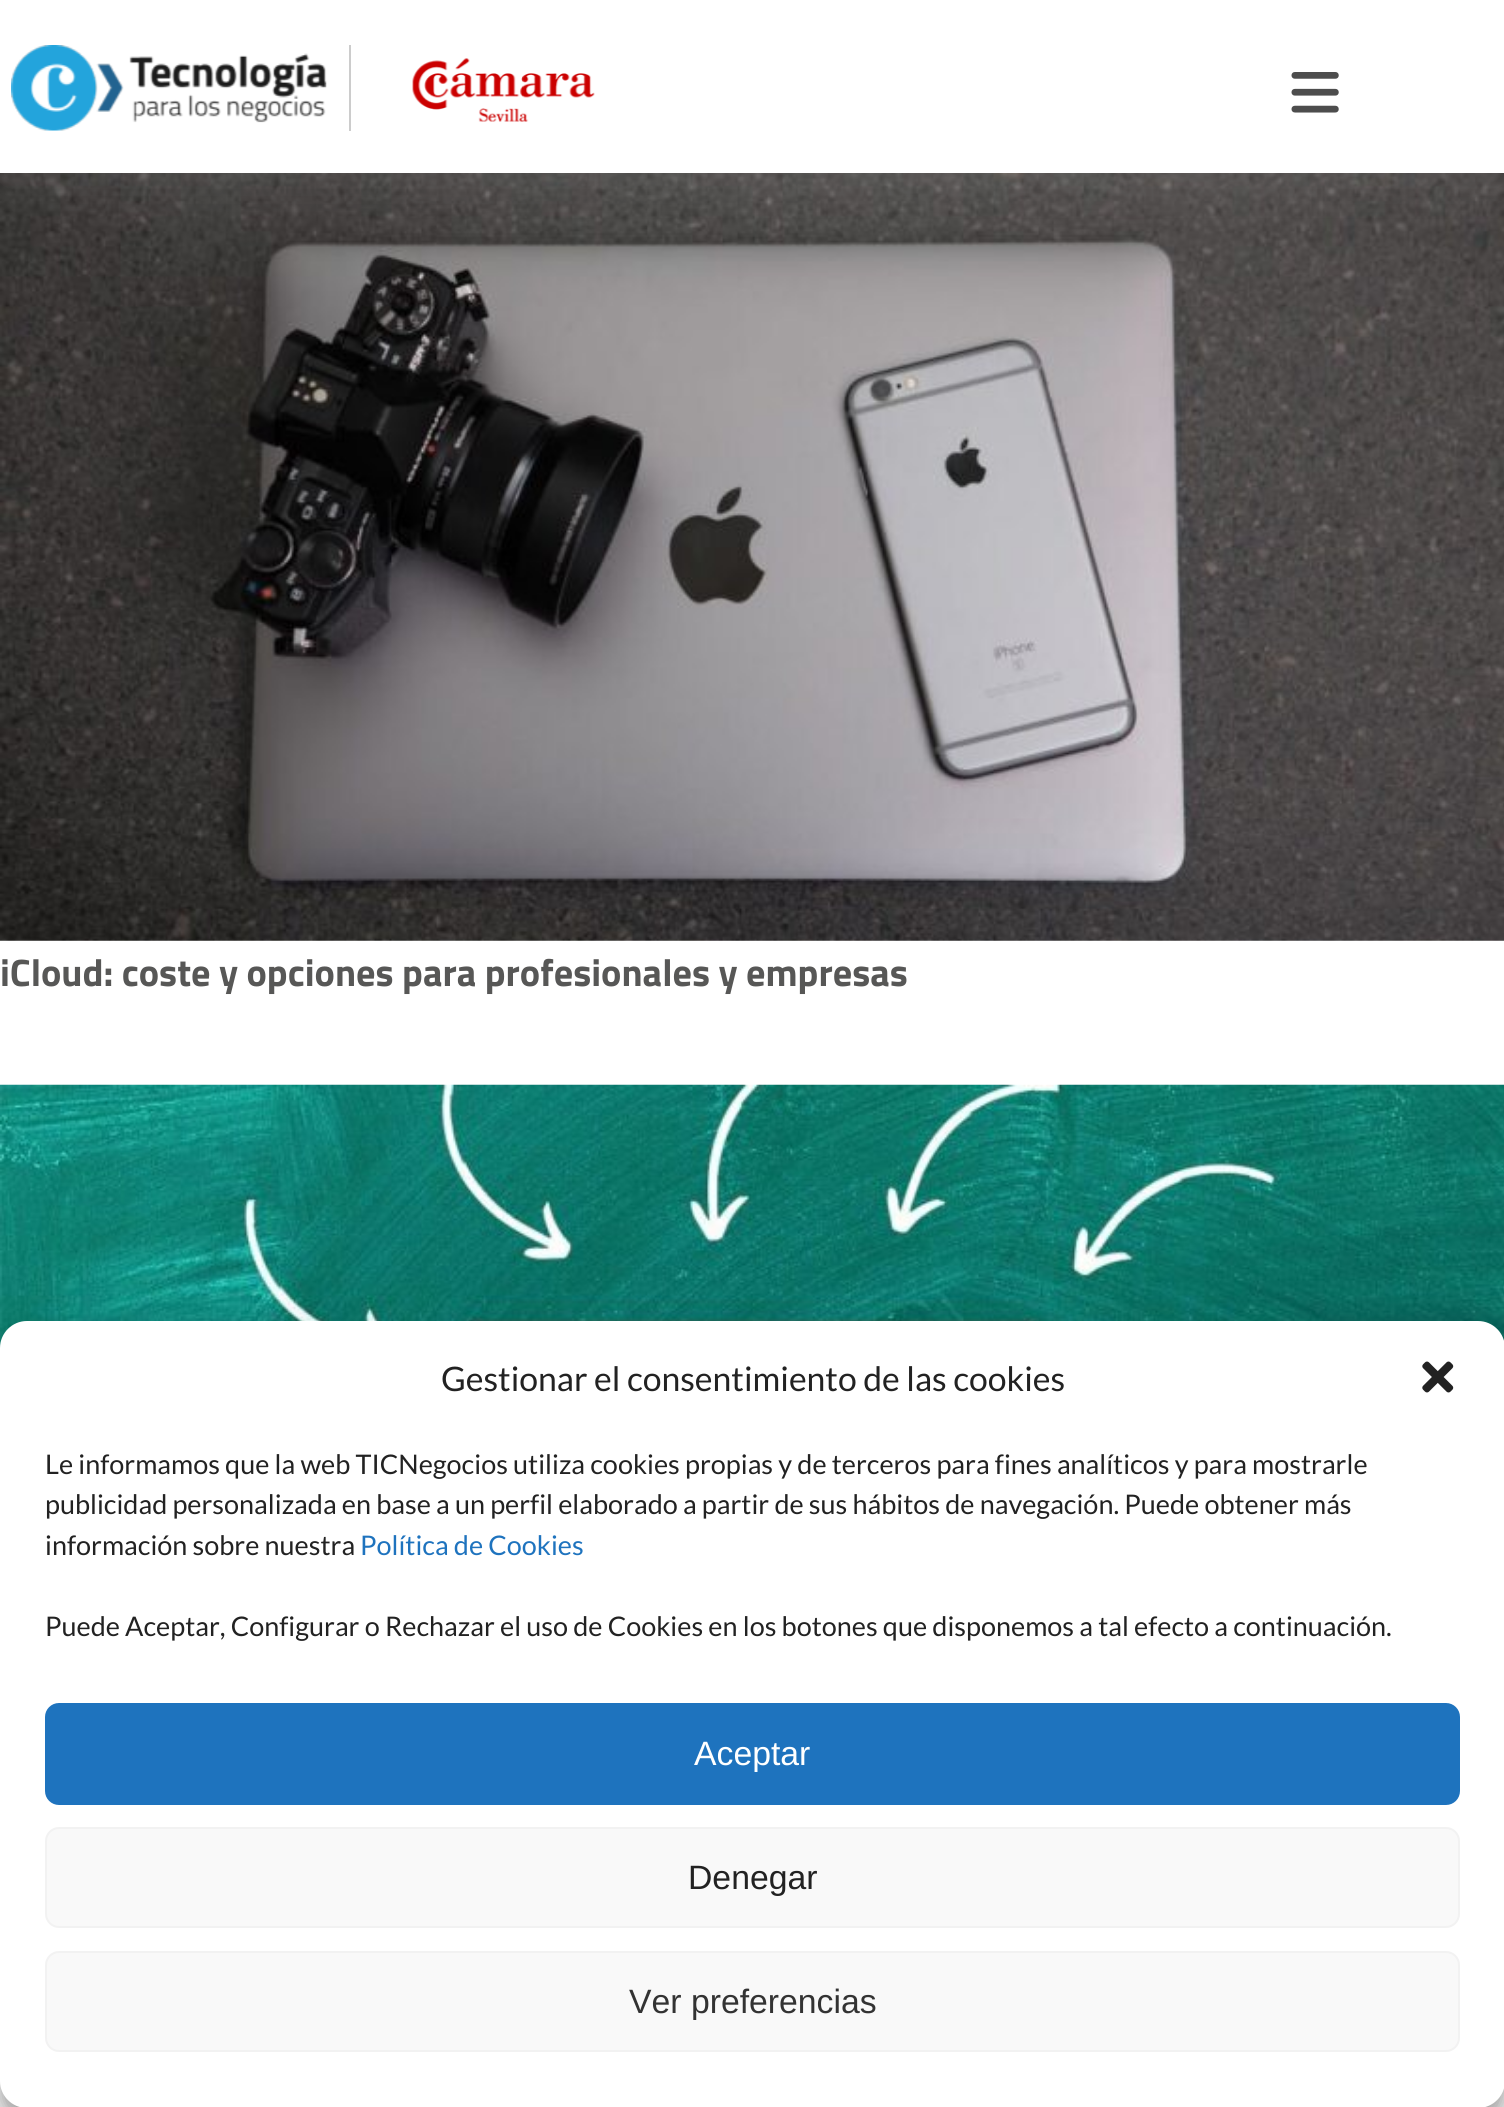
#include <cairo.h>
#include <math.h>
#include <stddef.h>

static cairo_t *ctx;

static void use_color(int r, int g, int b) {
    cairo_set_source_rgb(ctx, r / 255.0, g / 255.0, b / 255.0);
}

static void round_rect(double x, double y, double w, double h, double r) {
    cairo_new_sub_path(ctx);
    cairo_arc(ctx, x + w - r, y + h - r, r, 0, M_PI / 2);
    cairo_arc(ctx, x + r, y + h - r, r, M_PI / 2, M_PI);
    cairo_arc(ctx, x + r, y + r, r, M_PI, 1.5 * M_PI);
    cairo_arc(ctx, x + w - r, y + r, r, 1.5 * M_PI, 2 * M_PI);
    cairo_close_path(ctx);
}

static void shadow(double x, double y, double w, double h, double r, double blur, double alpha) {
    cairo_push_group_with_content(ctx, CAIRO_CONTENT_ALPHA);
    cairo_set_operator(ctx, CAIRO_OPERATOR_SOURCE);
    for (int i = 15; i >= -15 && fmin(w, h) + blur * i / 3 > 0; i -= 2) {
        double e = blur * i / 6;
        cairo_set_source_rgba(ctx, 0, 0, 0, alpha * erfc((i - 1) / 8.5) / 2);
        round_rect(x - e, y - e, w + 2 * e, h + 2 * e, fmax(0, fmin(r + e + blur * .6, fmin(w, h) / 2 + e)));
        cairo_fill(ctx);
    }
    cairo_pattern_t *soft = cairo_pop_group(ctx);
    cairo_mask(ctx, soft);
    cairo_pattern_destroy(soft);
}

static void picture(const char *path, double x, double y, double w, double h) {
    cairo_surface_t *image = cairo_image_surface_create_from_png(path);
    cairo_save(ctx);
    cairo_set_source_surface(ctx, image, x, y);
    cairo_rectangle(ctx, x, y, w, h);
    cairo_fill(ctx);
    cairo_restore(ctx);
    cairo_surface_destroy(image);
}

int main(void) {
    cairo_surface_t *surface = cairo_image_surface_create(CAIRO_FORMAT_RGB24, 1504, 2107);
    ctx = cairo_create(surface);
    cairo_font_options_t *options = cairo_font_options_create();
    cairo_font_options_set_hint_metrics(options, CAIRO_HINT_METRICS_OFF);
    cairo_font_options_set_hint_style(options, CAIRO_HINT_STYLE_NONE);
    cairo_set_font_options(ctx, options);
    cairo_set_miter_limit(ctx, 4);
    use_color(255, 255, 255);
    cairo_paint(ctx);
    picture("img4.png", 0, 173, 1504, 768);
    use_color(173, 173, 173);
    shadow(0, 11, 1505, 174, 0, 22.5, 0.15);
    use_color(255, 255, 255);
    cairo_rectangle(ctx, 0, 0, 1504, 173);
    cairo_fill(ctx);
    picture("img1.png", 11, 45, 316, 86);
    use_color(204, 204, 204);
    cairo_rectangle(ctx, 349, 45, 2, 86);
    cairo_fill(ctx);
    picture("img2.png", 412, 58, 183, 64);
    picture("img3.png", 1291, 72, 48, 41);
    cairo_select_font_face(ctx, "Titillium Web", CAIRO_FONT_SLANT_NORMAL, CAIRO_FONT_WEIGHT_BOLD);
    cairo_set_font_size(ctx, 38.25);
    use_color(87, 87, 86);
    cairo_move_to(ctx, 0, 986);
    cairo_show_text(ctx, "iCloud: coste y opciones para profesionales y empresas");
    picture("img5.png", 0, 1084, 1504, 264);
    use_color(0, 0, 0);
    shadow(0, 1334, 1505, 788, 27, 7, 0.23);
    shadow(0, 1343, 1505, 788, 27, 22.5, 0.19);
    use_color(255, 255, 255);
    round_rect(0, 1321, 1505, 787, 27);
    cairo_fill(ctx);
    cairo_select_font_face(ctx, "Lato", CAIRO_FONT_SLANT_NORMAL, CAIRO_FONT_WEIGHT_NORMAL);
    cairo_set_font_size(ctx, 33.75);
    use_color(34, 34, 34);
    cairo_move_to(ctx, 441, 1391);
    cairo_show_text(ctx, "Gestionar el consentimiento de las cookies");
    picture("img6.png", 1422, 1361, 32, 32);
    cairo_set_font_size(ctx, 27);
    cairo_move_to(ctx, 45, 1474);
    cairo_show_text(ctx, "Le informamos que la web TICNegocios utiliza cookies propias y de terceros para fines analíticos y para mostrarle");
    cairo_move_to(ctx, 45, 1514);
    cairo_show_text(ctx, "publicidad personalizada en base a un perfil elaborado a partir de sus hábitos de navegación. Puede obtener más");
    cairo_move_to(ctx, 45, 1555);
    cairo_show_text(ctx, "información sobre nuestra");
    use_color(30, 115, 190);
    cairo_move_to(ctx, 360, 1555);
    cairo_show_text(ctx, "Política de Cookies");
    use_color(34, 34, 34);
    cairo_move_to(ctx, 45, 1636);
    cairo_show_text(ctx, "Puede Aceptar, Configurar o Rechazar el uso de Cookies en los botones que disponemos a tal efecto a continuación.");
    use_color(30, 115, 190);
    round_rect(46, 1704, 1413, 100, 13);
    cairo_fill_preserve(ctx);
    cairo_stroke(ctx);
    cairo_select_font_face(ctx, "Liberation Sans", CAIRO_FONT_SLANT_NORMAL, CAIRO_FONT_WEIGHT_NORMAL);
    cairo_set_font_size(ctx, 33.75);
    use_color(255, 255, 255);
    cairo_move_to(ctx, 694, 1765);
    cairo_show_text(ctx, "Aceptar");
    use_color(249, 249, 249);
    round_rect(46, 1828, 1413, 99, 13);
    cairo_fill_preserve(ctx);
    use_color(242, 242, 242);
    cairo_stroke(ctx);
    use_color(34, 34, 34);
    cairo_move_to(ctx, 688, 1889);
    cairo_show_text(ctx, "Denegar");
    use_color(249, 249, 249);
    round_rect(46, 1952, 1413, 99, 13);
    cairo_fill_preserve(ctx);
    use_color(242, 242, 242);
    cairo_stroke(ctx);
    use_color(51, 51, 51);
    cairo_move_to(ctx, 629, 2013);
    cairo_show_text(ctx, "Ver preferencias");
    cairo_surface_write_to_png(surface, "result.png");
    cairo_font_options_destroy(options);
    cairo_destroy(ctx);
    cairo_surface_destroy(surface);
    return 0;
}
